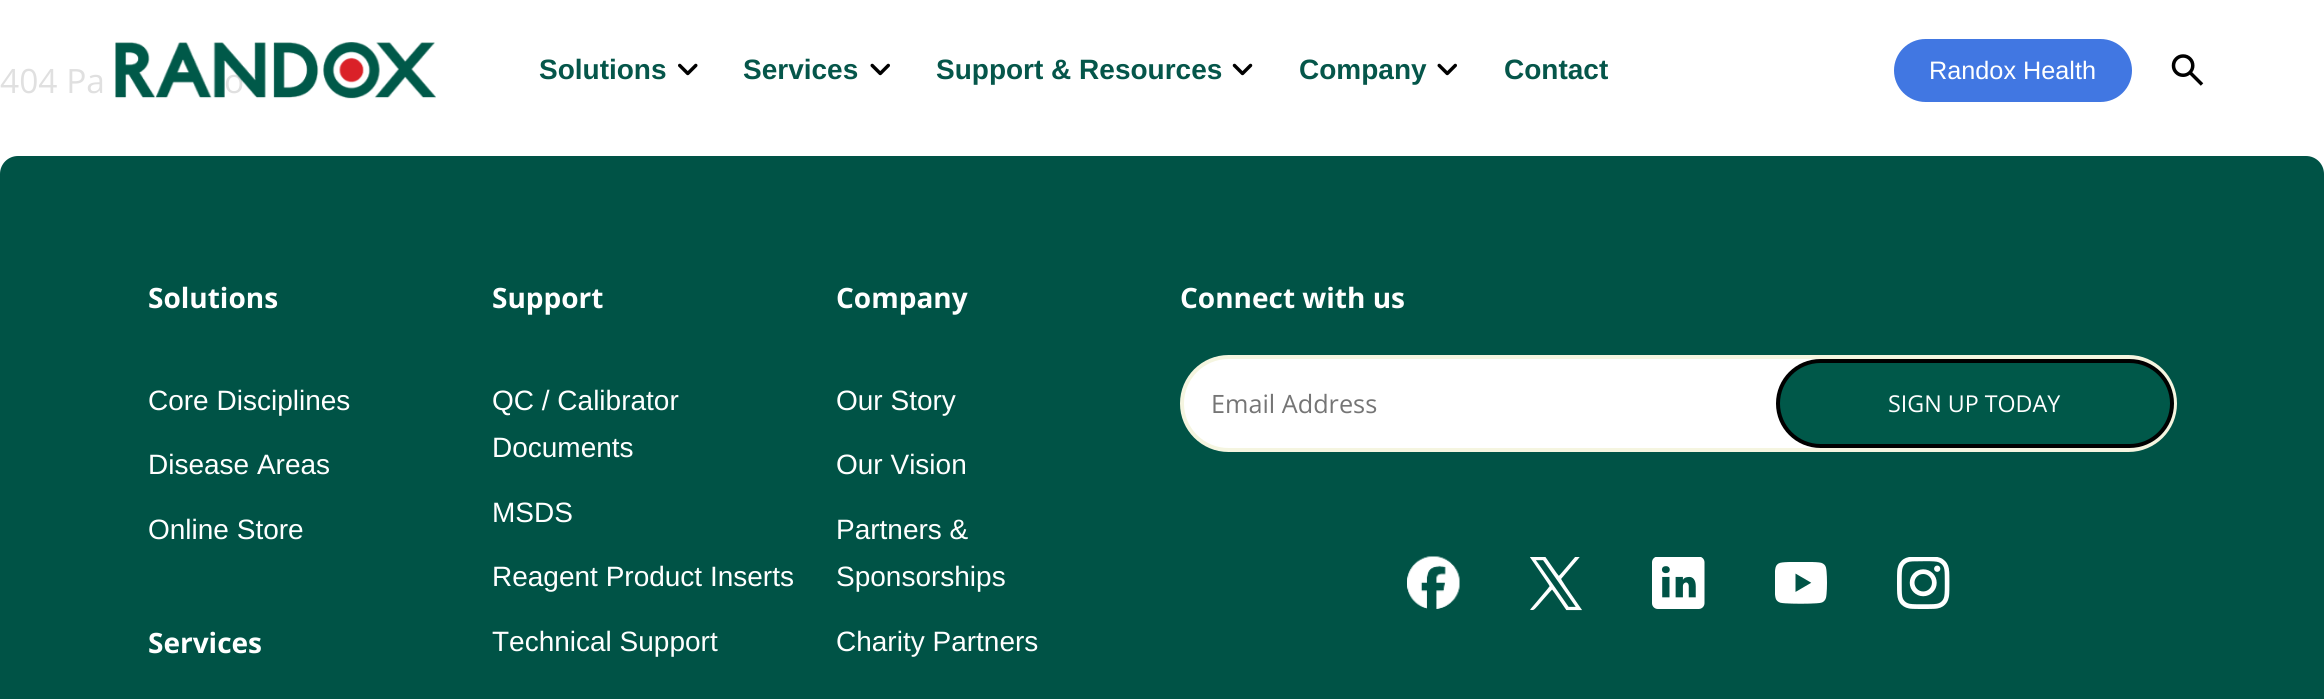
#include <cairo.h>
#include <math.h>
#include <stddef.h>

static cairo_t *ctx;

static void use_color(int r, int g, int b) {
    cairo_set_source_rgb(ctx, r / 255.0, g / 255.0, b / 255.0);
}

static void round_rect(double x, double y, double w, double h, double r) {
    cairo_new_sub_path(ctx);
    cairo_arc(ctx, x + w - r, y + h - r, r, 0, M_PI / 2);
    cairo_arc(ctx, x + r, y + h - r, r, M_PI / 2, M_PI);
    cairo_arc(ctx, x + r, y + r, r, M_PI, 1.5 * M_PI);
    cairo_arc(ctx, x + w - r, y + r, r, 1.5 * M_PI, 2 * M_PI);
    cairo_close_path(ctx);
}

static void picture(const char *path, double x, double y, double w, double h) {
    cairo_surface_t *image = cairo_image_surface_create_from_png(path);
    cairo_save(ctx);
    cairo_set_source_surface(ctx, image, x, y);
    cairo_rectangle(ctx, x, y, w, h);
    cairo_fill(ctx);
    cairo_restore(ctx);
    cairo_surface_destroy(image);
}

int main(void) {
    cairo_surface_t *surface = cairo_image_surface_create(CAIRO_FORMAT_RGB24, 2324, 699);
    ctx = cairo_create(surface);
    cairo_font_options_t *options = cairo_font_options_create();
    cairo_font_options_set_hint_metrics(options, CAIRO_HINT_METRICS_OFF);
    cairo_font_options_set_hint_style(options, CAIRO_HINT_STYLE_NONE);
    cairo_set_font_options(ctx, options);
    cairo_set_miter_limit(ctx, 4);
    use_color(255, 255, 255);
    cairo_paint(ctx);
    cairo_select_font_face(ctx, "Open Sans", CAIRO_FONT_SLANT_NORMAL, CAIRO_FONT_WEIGHT_NORMAL);
    cairo_set_font_size(ctx, 33.5);
    use_color(224, 224, 224);
    cairo_move_to(ctx, 0, 93);
    cairo_show_text(ctx, "404 Pa");
    cairo_move_to(ctx, 224, 93);
    cairo_show_text(ctx, "o");
    picture("img1.png", 115, 42, 321, 57);
    cairo_select_font_face(ctx, "Liberation Sans", CAIRO_FONT_SLANT_NORMAL, CAIRO_FONT_WEIGHT_BOLD);
    cairo_set_font_size(ctx, 28);
    use_color(5, 86, 74);
    cairo_move_to(ctx, 539, 79);
    cairo_show_text(ctx, "Solutions");
    picture("img2.png", 678, 63, 20, 13);
    cairo_move_to(ctx, 743, 79);
    cairo_show_text(ctx, "Services");
    picture("img3.png", 870, 63, 20, 13);
    cairo_move_to(ctx, 936, 79);
    cairo_show_text(ctx, "Support & Resources");
    picture("img4.png", 1232, 63, 21, 13);
    cairo_move_to(ctx, 1299, 79);
    cairo_show_text(ctx, "Company");
    picture("img3.png", 1437, 63, 20, 13);
    cairo_move_to(ctx, 1504, 79);
    cairo_show_text(ctx, "Contact");
    use_color(65, 119, 226);
    round_rect(1894, 39, 238, 63, 31.5);
    cairo_fill(ctx);
    cairo_select_font_face(ctx, "Liberation Sans", CAIRO_FONT_SLANT_NORMAL, CAIRO_FONT_WEIGHT_NORMAL);
    cairo_set_font_size(ctx, 25.25);
    use_color(255, 255, 255);
    cairo_move_to(ctx, 1929, 79);
    cairo_show_text(ctx, "Randox Health");
    picture("img5.png", 2171, 54, 33, 32);
    use_color(0, 83, 70);
    cairo_new_path(ctx);
    cairo_move_to(ctx, 18, 156);
    cairo_line_to(ctx, 2306, 156);
    cairo_curve_to(ctx, 2316, 156, 2324, 164, 2324, 174);
    cairo_line_to(ctx, 2324, 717);
    cairo_line_to(ctx, 0, 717);
    cairo_line_to(ctx, 0, 174);
    cairo_curve_to(ctx, 0, 164, 8, 156, 18, 156);
    cairo_close_path(ctx);
    cairo_fill(ctx);
    cairo_select_font_face(ctx, "Open Sans", CAIRO_FONT_SLANT_NORMAL, CAIRO_FONT_WEIGHT_BOLD);
    cairo_set_font_size(ctx, 28);
    use_color(255, 255, 255);
    cairo_move_to(ctx, 148, 308);
    cairo_show_text(ctx, "Solutions");
    cairo_select_font_face(ctx, "Liberation Sans", CAIRO_FONT_SLANT_NORMAL, CAIRO_FONT_WEIGHT_NORMAL);
    cairo_move_to(ctx, 148, 410);
    cairo_show_text(ctx, "Core Disciplines");
    cairo_move_to(ctx, 148, 474);
    cairo_show_text(ctx, "Disease Areas");
    cairo_move_to(ctx, 148, 539);
    cairo_show_text(ctx, "Online Store");
    cairo_select_font_face(ctx, "Open Sans", CAIRO_FONT_SLANT_NORMAL, CAIRO_FONT_WEIGHT_BOLD);
    cairo_move_to(ctx, 148, 653);
    cairo_show_text(ctx, "Services");
    cairo_move_to(ctx, 492, 308);
    cairo_show_text(ctx, "Support");
    cairo_select_font_face(ctx, "Liberation Sans", CAIRO_FONT_SLANT_NORMAL, CAIRO_FONT_WEIGHT_NORMAL);
    cairo_move_to(ctx, 492, 410);
    cairo_show_text(ctx, "QC / Calibrator");
    cairo_move_to(ctx, 492, 457);
    cairo_show_text(ctx, "Documents");
    cairo_move_to(ctx, 492, 522);
    cairo_show_text(ctx, "MSDS");
    cairo_move_to(ctx, 492, 586);
    cairo_show_text(ctx, "Reagent Product Inserts");
    cairo_move_to(ctx, 492, 651);
    cairo_show_text(ctx, "Technical Support");
    cairo_select_font_face(ctx, "Open Sans", CAIRO_FONT_SLANT_NORMAL, CAIRO_FONT_WEIGHT_BOLD);
    cairo_move_to(ctx, 836, 308);
    cairo_show_text(ctx, "Company");
    cairo_select_font_face(ctx, "Liberation Sans", CAIRO_FONT_SLANT_NORMAL, CAIRO_FONT_WEIGHT_NORMAL);
    cairo_move_to(ctx, 836, 410);
    cairo_show_text(ctx, "Our Story");
    cairo_move_to(ctx, 836, 474);
    cairo_show_text(ctx, "Our Vision");
    cairo_move_to(ctx, 836, 539);
    cairo_show_text(ctx, "Partners &");
    cairo_move_to(ctx, 836, 586);
    cairo_show_text(ctx, "Sponsorships");
    cairo_move_to(ctx, 836, 651);
    cairo_show_text(ctx, "Charity Partners");
    cairo_select_font_face(ctx, "Open Sans", CAIRO_FONT_SLANT_NORMAL, CAIRO_FONT_WEIGHT_BOLD);
    cairo_move_to(ctx, 1180, 308);
    cairo_show_text(ctx, "Connect with us");
    round_rect(1182, 357, 993, 93, 46.5);
    cairo_fill_preserve(ctx);
    use_color(245, 245, 224);
    cairo_set_line_width(ctx, 4);
    cairo_stroke(ctx);
    cairo_select_font_face(ctx, "Open Sans", CAIRO_FONT_SLANT_NORMAL, CAIRO_FONT_WEIGHT_NORMAL);
    cairo_set_font_size(ctx, 25.25);
    use_color(117, 117, 117);
    cairo_move_to(ctx, 1211, 413);
    cairo_show_text(ctx, "Email Address");
    use_color(0, 88, 73);
    round_rect(1778, 361, 394, 85, 42.5);
    cairo_fill_preserve(ctx);
    use_color(0, 0, 0);
    cairo_stroke(ctx);
    cairo_set_font_size(ctx, 23.25);
    use_color(255, 255, 255);
    cairo_move_to(ctx, 1888, 412);
    cairo_show_text(ctx, "SIGN UP TODAY");
    picture("img6.png", 1407, 556, 53, 53);
    picture("img7.png", 1530, 557, 52, 54);
    picture("img8.png", 1652, 557, 53, 52);
    picture("img9.png", 1775, 562, 52, 42);
    picture("img10.png", 1897, 557, 53, 52);
    cairo_surface_write_to_png(surface, "result.png");
    cairo_font_options_destroy(options);
    cairo_destroy(ctx);
    cairo_surface_destroy(surface);
    return 0;
}
